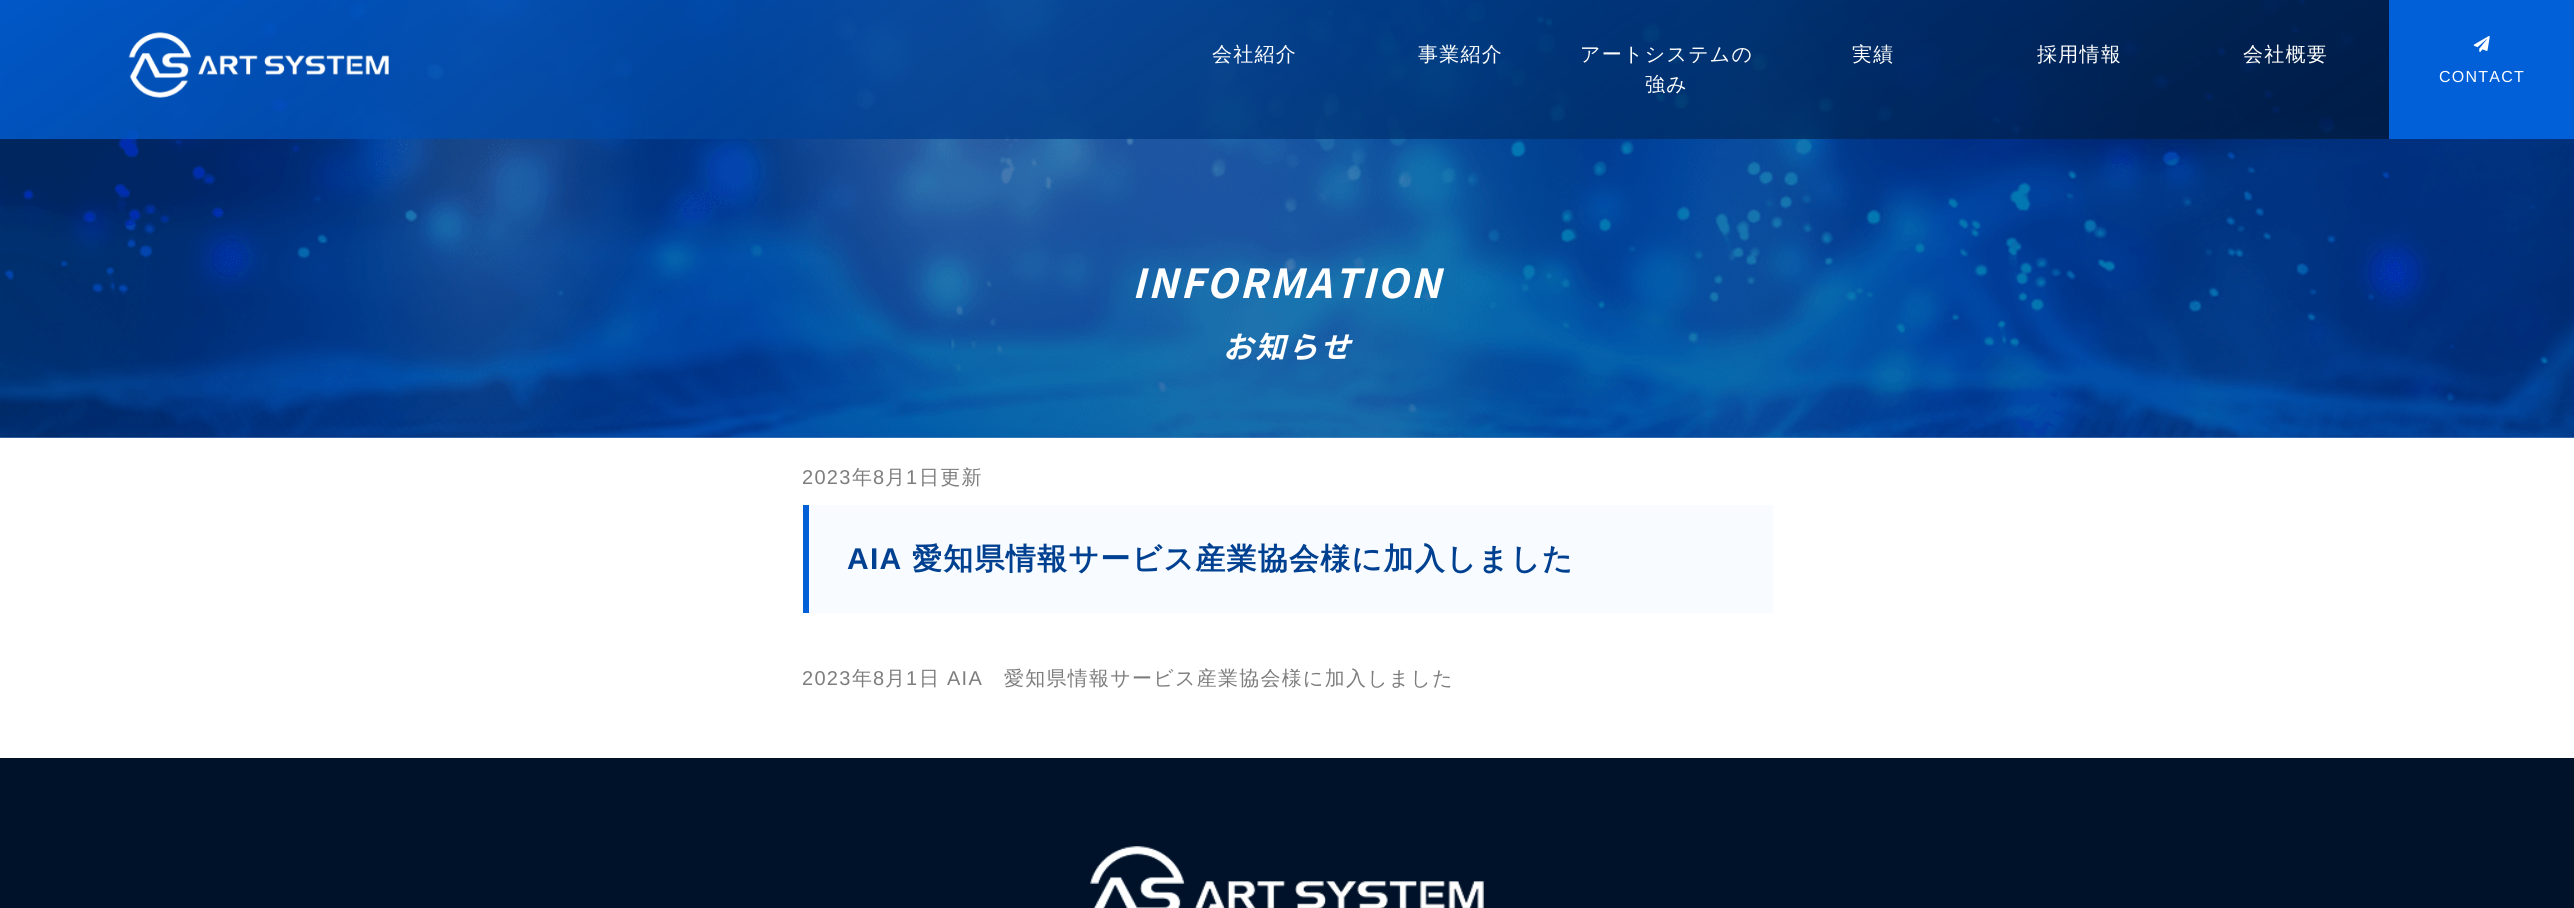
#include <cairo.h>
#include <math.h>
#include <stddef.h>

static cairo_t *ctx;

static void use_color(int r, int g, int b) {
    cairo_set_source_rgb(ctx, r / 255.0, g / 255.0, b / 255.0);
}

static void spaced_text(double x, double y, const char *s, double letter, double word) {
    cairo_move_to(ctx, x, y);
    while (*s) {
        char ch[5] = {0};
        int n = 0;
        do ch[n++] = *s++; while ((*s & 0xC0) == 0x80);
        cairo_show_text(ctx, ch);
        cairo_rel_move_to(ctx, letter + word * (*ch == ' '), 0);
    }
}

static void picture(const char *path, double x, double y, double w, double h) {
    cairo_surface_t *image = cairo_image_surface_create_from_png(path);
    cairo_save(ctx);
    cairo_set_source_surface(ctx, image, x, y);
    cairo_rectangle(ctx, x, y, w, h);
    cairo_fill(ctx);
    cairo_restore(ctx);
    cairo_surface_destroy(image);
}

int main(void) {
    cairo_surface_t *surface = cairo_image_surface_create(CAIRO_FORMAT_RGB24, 2574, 908);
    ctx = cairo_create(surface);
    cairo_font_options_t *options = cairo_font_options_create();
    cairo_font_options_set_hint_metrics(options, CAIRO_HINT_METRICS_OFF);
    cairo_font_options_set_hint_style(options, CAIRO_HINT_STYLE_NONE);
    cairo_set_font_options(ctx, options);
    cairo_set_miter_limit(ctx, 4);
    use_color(255, 255, 255);
    cairo_paint(ctx);
    use_color(102, 140, 188);
    cairo_rectangle(ctx, 0, 437, 2574, 1);
    cairo_fill(ctx);
    picture("img3.png", 0, 0, 2574, 438);
    picture("img1.png", 128, 32, 261, 66);
    cairo_select_font_face(ctx, "WenQuanYi Zen Hei Medium", CAIRO_FONT_SLANT_NORMAL, CAIRO_FONT_WEIGHT_NORMAL);
    cairo_set_font_size(ctx, 20);
    use_color(255, 255, 255);
    spaced_text(1212, 61, "会社紹介", 1.25, 0);
    spaced_text(1418, 61, "事業紹介", 1.25, 0);
    spaced_text(1580, 61, "アートシステムの", 1.25, 0);
    spaced_text(1645, 91, "強み", 1.25, 0);
    spaced_text(1852, 61, "実績", 1.25, 0);
    spaced_text(2037, 61, "採用情報", 1.25, 0);
    spaced_text(2243, 61, "会社概要", 1.25, 0);
    use_color(1, 95, 215);
    cairo_rectangle(ctx, 2389, 0, 185, 139);
    cairo_fill(ctx);
    picture("img2.png", 2473, 36, 17, 16);
    cairo_select_font_face(ctx, "Liberation Sans", CAIRO_FONT_SLANT_NORMAL, CAIRO_FONT_WEIGHT_NORMAL);
    cairo_set_font_size(ctx, 16);
    use_color(255, 255, 255);
    spaced_text(2439, 82, "CONTACT", 1.25, 0);
    cairo_select_font_face(ctx, "Noto Sans JP", CAIRO_FONT_SLANT_ITALIC, CAIRO_FONT_WEIGHT_BOLD);
    cairo_set_font_size(ctx, 40);
    spaced_text(1132, 298, "INFORMATION", 2.5, 0);
    cairo_set_font_size(ctx, 30);
    spaced_text(1223, 358, "お知らせ", 2.5, 0);
    cairo_select_font_face(ctx, "Liberation Sans", CAIRO_FONT_SLANT_NORMAL, CAIRO_FONT_WEIGHT_NORMAL);
    cairo_set_font_size(ctx, 20);
    use_color(125, 125, 125);
    spaced_text(802, 484, "2023", 1.25, 0);
    cairo_select_font_face(ctx, "WenQuanYi Zen Hei Medium", CAIRO_FONT_SLANT_NORMAL, CAIRO_FONT_WEIGHT_NORMAL);
    spaced_text(852, 484, "年", 1.25, 0);
    cairo_select_font_face(ctx, "Liberation Sans", CAIRO_FONT_SLANT_NORMAL, CAIRO_FONT_WEIGHT_NORMAL);
    spaced_text(873, 484, "8", 1.25, 0);
    cairo_select_font_face(ctx, "WenQuanYi Zen Hei Medium", CAIRO_FONT_SLANT_NORMAL, CAIRO_FONT_WEIGHT_NORMAL);
    spaced_text(885, 484, "月", 1.25, 0);
    cairo_select_font_face(ctx, "Liberation Sans", CAIRO_FONT_SLANT_NORMAL, CAIRO_FONT_WEIGHT_NORMAL);
    spaced_text(906, 484, "1", 1.25, 0);
    cairo_select_font_face(ctx, "WenQuanYi Zen Hei Medium", CAIRO_FONT_SLANT_NORMAL, CAIRO_FONT_WEIGHT_NORMAL);
    spaced_text(919, 484, "日更新", 1.25, 0);
    use_color(248, 251, 255);
    cairo_rectangle(ctx, 809, 505, 964, 108);
    cairo_fill(ctx);
    use_color(1, 95, 215);
    cairo_rectangle(ctx, 803, 505, 6, 108);
    cairo_fill(ctx);
    cairo_select_font_face(ctx, "Liberation Sans", CAIRO_FONT_SLANT_NORMAL, CAIRO_FONT_WEIGHT_BOLD);
    cairo_set_font_size(ctx, 30);
    use_color(0, 64, 144);
    spaced_text(847, 569, "AIA", 1.25, 0);
    cairo_select_font_face(ctx, "WenQuanYi Zen Hei", CAIRO_FONT_SLANT_NORMAL, CAIRO_FONT_WEIGHT_BOLD);
    spaced_text(912, 569, "愛知県情報サービス産業協会様に加入しました", 1.25, 0);
    cairo_select_font_face(ctx, "Liberation Sans", CAIRO_FONT_SLANT_NORMAL, CAIRO_FONT_WEIGHT_NORMAL);
    cairo_set_font_size(ctx, 20);
    use_color(125, 125, 125);
    spaced_text(802, 685, "2023", 1.25, 0);
    cairo_select_font_face(ctx, "WenQuanYi Zen Hei Medium", CAIRO_FONT_SLANT_NORMAL, CAIRO_FONT_WEIGHT_NORMAL);
    spaced_text(852, 685, "年", 1.25, 0);
    cairo_select_font_face(ctx, "Liberation Sans", CAIRO_FONT_SLANT_NORMAL, CAIRO_FONT_WEIGHT_NORMAL);
    spaced_text(873, 685, "8", 1.25, 0);
    cairo_select_font_face(ctx, "WenQuanYi Zen Hei Medium", CAIRO_FONT_SLANT_NORMAL, CAIRO_FONT_WEIGHT_NORMAL);
    spaced_text(885, 685, "月", 1.25, 0);
    cairo_select_font_face(ctx, "Liberation Sans", CAIRO_FONT_SLANT_NORMAL, CAIRO_FONT_WEIGHT_NORMAL);
    spaced_text(906, 685, "1", 1.25, 0);
    cairo_select_font_face(ctx, "WenQuanYi Zen Hei Medium", CAIRO_FONT_SLANT_NORMAL, CAIRO_FONT_WEIGHT_NORMAL);
    spaced_text(919, 685, "日", 1.25, 0);
    cairo_select_font_face(ctx, "Liberation Sans", CAIRO_FONT_SLANT_NORMAL, CAIRO_FONT_WEIGHT_NORMAL);
    spaced_text(947, 685, "AIA", 1.25, 0);
    cairo_select_font_face(ctx, "WenQuanYi Zen Hei Medium", CAIRO_FONT_SLANT_NORMAL, CAIRO_FONT_WEIGHT_NORMAL);
    spaced_text(1004, 685, "愛知県情報サービス産業協会様に加入しました", 1.25, 0);
    use_color(0, 18, 41);
    cairo_rectangle(ctx, 0, 758, 2574, 150);
    cairo_fill(ctx);
    picture("img4.png", 1090, 846, 394, 62);
    cairo_surface_write_to_png(surface, "result.png");
    cairo_font_options_destroy(options);
    cairo_destroy(ctx);
    cairo_surface_destroy(surface);
    return 0;
}
